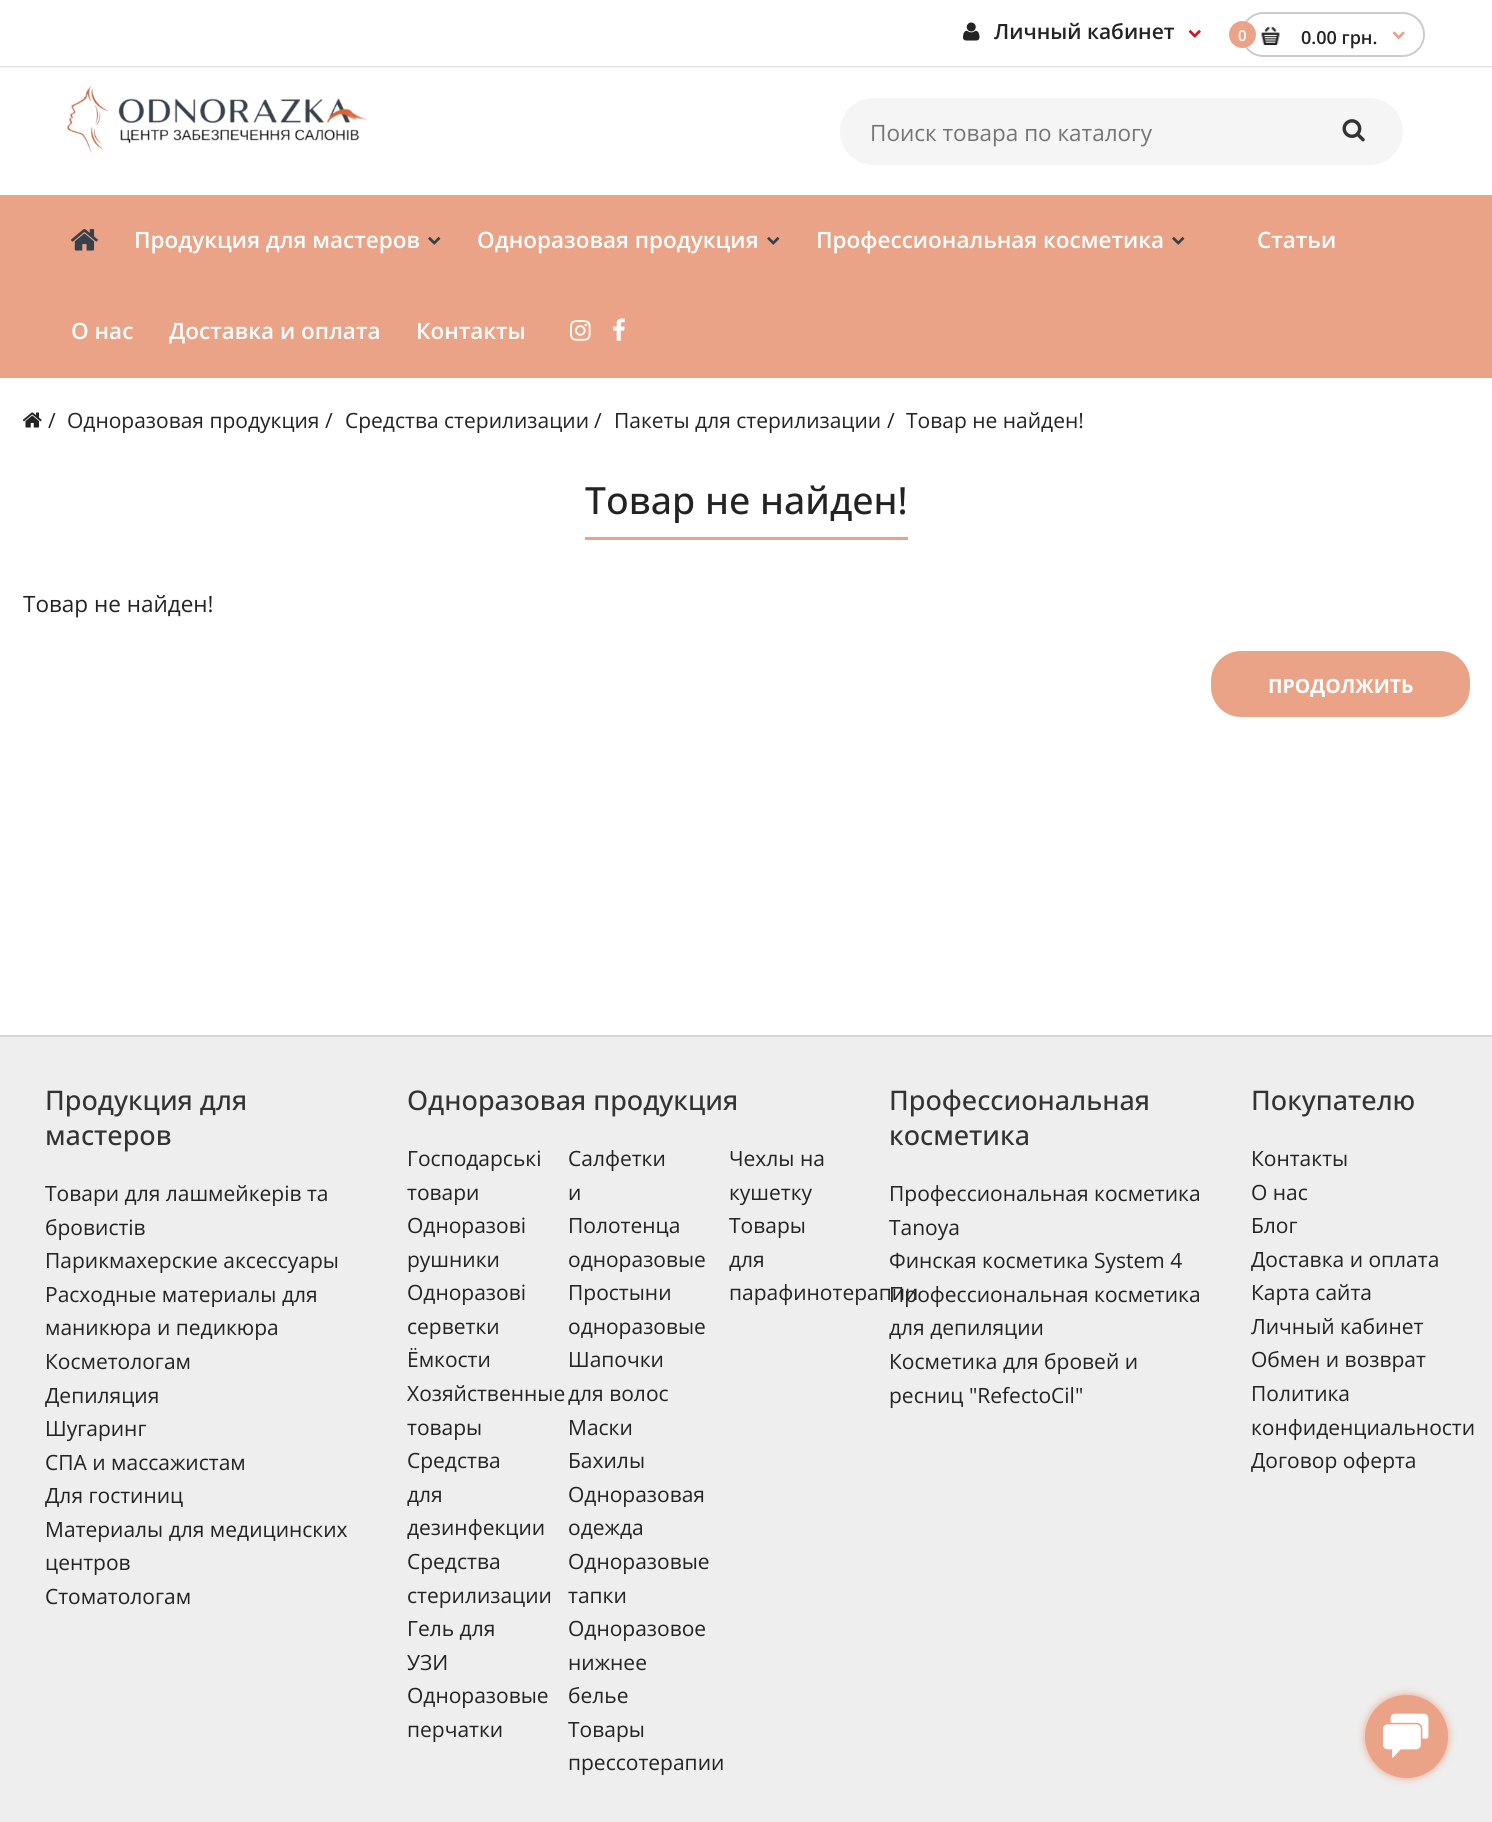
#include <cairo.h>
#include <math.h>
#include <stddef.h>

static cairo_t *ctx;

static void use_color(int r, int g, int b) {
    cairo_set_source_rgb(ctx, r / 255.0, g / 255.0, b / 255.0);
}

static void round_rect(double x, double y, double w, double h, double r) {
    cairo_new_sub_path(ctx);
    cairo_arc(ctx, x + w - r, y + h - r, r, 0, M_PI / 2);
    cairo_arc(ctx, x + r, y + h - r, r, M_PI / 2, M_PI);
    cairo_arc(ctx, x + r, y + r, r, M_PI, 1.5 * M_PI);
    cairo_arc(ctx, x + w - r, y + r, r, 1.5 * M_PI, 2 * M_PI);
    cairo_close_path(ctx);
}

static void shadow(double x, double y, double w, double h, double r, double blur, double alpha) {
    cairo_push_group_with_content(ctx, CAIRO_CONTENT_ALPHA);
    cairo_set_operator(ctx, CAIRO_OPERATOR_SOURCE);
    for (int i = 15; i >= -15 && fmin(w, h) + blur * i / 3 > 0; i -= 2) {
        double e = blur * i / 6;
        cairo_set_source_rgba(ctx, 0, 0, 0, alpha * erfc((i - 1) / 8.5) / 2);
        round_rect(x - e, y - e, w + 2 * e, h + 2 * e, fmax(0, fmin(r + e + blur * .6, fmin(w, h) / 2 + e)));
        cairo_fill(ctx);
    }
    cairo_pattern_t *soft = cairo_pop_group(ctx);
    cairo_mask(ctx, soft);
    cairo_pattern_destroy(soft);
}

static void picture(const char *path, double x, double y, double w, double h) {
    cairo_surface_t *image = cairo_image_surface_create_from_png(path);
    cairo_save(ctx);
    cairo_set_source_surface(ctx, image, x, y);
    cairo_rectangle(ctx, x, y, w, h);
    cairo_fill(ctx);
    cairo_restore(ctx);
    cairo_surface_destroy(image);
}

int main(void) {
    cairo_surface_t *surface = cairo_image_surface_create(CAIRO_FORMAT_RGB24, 1492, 1822);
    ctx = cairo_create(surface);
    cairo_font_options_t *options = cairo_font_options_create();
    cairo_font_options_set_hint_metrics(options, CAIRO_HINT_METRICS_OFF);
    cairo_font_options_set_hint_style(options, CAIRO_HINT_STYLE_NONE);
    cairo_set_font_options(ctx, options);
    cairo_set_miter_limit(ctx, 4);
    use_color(255, 255, 255);
    cairo_paint(ctx);
    picture("img1.png", 0, 66, 1492, 2);
    picture("img2.png", 963, 22, 17, 19);
    cairo_select_font_face(ctx, "Open Sans SemiBold", CAIRO_FONT_SLANT_NORMAL, CAIRO_FONT_WEIGHT_NORMAL);
    cairo_set_font_size(ctx, 21);
    use_color(35, 35, 35);
    cairo_move_to(ctx, 994, 39);
    cairo_show_text(ctx, "Личный кабинет");
    picture("img3.png", 1188, 30, 13, 8);
    round_rect(1242, 13, 182, 43, 21.5);
    use_color(204, 204, 204);
    cairo_stroke(ctx);
    use_color(235, 163, 135);
    cairo_arc(ctx, 1242.5, 34.5, 13.5, 0, 2 * M_PI);
    cairo_fill(ctx);
    cairo_set_font_size(ctx, 15);
    use_color(255, 255, 255);
    cairo_move_to(ctx, 1238, 41);
    cairo_show_text(ctx, "0");
    picture("img4.png", 1261, 27, 19, 18);
    cairo_set_font_size(ctx, 18);
    use_color(35, 35, 35);
    cairo_move_to(ctx, 1301, 44);
    cairo_show_text(ctx, "0.00 грн.");
    picture("img5.png", 1392, 31, 13, 9);
    picture("img6.png", 67, 85, 301, 68);
    use_color(245, 245, 245);
    round_rect(840, 98, 563, 67, 33.5);
    cairo_fill(ctx);
    cairo_select_font_face(ctx, "Open Sans", CAIRO_FONT_SLANT_NORMAL, CAIRO_FONT_WEIGHT_NORMAL);
    cairo_set_font_size(ctx, 22.5);
    use_color(117, 117, 117);
    cairo_move_to(ctx, 870, 141);
    cairo_show_text(ctx, "Поиск товара по каталогу");
    picture("img7.png", 1342, 119, 23, 23);
    use_color(235, 163, 135);
    cairo_rectangle(ctx, 0, 195, 1492, 183);
    cairo_fill(ctx);
    picture("img8.png", 71, 229, 27, 22);
    cairo_select_font_face(ctx, "Open Sans SemiBold", CAIRO_FONT_SLANT_NORMAL, CAIRO_FONT_WEIGHT_NORMAL);
    use_color(255, 255, 255);
    cairo_move_to(ctx, 134, 248);
    cairo_show_text(ctx, "Продукция для мастеров");
    picture("img9.png", 428, 237, 13, 8);
    cairo_move_to(ctx, 477, 248);
    cairo_show_text(ctx, "Одноразовая продукция");
    picture("img9.png", 767, 237, 13, 8);
    cairo_move_to(ctx, 816, 248);
    cairo_show_text(ctx, "Профессиональная косметика");
    picture("img9.png", 1172, 237, 13, 8);
    cairo_move_to(ctx, 1257, 248);
    cairo_show_text(ctx, "Статьи");
    cairo_move_to(ctx, 71, 339);
    cairo_show_text(ctx, "О нас");
    cairo_move_to(ctx, 169, 339);
    cairo_show_text(ctx, "Доставка и оплата");
    cairo_move_to(ctx, 416, 339);
    cairo_show_text(ctx, "Контакты");
    picture("img10.png", 570, 320, 21, 21);
    picture("img11.png", 613, 318, 12, 23);
    picture("img12.png", 22, 412, 20, 16);
    cairo_select_font_face(ctx, "Open Sans", CAIRO_FONT_SLANT_NORMAL, CAIRO_FONT_WEIGHT_NORMAL);
    cairo_set_font_size(ctx, 21);
    use_color(35, 35, 35);
    cairo_move_to(ctx, 48, 428);
    cairo_show_text(ctx, "/");
    cairo_move_to(ctx, 67, 428);
    cairo_show_text(ctx, "Одноразовая продукция");
    cairo_move_to(ctx, 325, 428);
    cairo_show_text(ctx, "/");
    cairo_move_to(ctx, 345, 428);
    cairo_show_text(ctx, "Средства стерилизации");
    cairo_move_to(ctx, 594, 428);
    cairo_show_text(ctx, "/");
    cairo_move_to(ctx, 614, 428);
    cairo_show_text(ctx, "Пакеты для стерилизации");
    cairo_move_to(ctx, 887, 428);
    cairo_show_text(ctx, "/");
    cairo_move_to(ctx, 906, 428);
    cairo_show_text(ctx, "Товар не найден!");
    use_color(235, 163, 135);
    cairo_rectangle(ctx, 585, 537, 323, 3);
    cairo_fill(ctx);
    cairo_select_font_face(ctx, "Open Sans Medium", CAIRO_FONT_SLANT_NORMAL, CAIRO_FONT_WEIGHT_NORMAL);
    cairo_set_font_size(ctx, 37.5);
    use_color(35, 35, 35);
    cairo_move_to(ctx, 585, 514);
    cairo_show_text(ctx, "Товар не найден!");
    cairo_select_font_face(ctx, "Open Sans", CAIRO_FONT_SLANT_NORMAL, CAIRO_FONT_WEIGHT_NORMAL);
    cairo_set_font_size(ctx, 22.5);
    cairo_move_to(ctx, 23, 612);
    cairo_show_text(ctx, "Товар не найден!");
    use_color(235, 163, 135);
    round_rect(1211, 651, 259, 66, 30);
    cairo_fill(ctx);
    cairo_select_font_face(ctx, "Open Sans", CAIRO_FONT_SLANT_NORMAL, CAIRO_FONT_WEIGHT_BOLD);
    cairo_set_font_size(ctx, 19.5);
    use_color(255, 255, 255);
    cairo_move_to(ctx, 1268, 693);
    cairo_show_text(ctx, "ПРОДОЛЖИТЬ");
    use_color(238, 238, 238);
    cairo_rectangle(ctx, 0, 1037, 1492, 785);
    cairo_fill(ctx);
    use_color(214, 214, 214);
    cairo_rectangle(ctx, 0, 1035, 1492, 2);
    cairo_fill(ctx);
    cairo_select_font_face(ctx, "Open Sans Medium", CAIRO_FONT_SLANT_NORMAL, CAIRO_FONT_WEIGHT_NORMAL);
    cairo_set_font_size(ctx, 27);
    use_color(51, 51, 51);
    cairo_move_to(ctx, 45, 1110);
    cairo_show_text(ctx, "Продукция для");
    cairo_move_to(ctx, 45, 1145);
    cairo_show_text(ctx, "мастеров");
    cairo_select_font_face(ctx, "Open Sans", CAIRO_FONT_SLANT_NORMAL, CAIRO_FONT_WEIGHT_NORMAL);
    cairo_set_font_size(ctx, 21);
    use_color(35, 35, 35);
    cairo_move_to(ctx, 45, 1201);
    cairo_show_text(ctx, "Товари для лашмейкерів та");
    cairo_move_to(ctx, 45, 1235);
    cairo_show_text(ctx, "бровистів");
    cairo_move_to(ctx, 45, 1268);
    cairo_show_text(ctx, "Парикмахерские аксессуары");
    cairo_move_to(ctx, 45, 1302);
    cairo_show_text(ctx, "Расходные материалы для");
    cairo_move_to(ctx, 45, 1335);
    cairo_show_text(ctx, "маникюра и педикюра");
    cairo_move_to(ctx, 45, 1369);
    cairo_show_text(ctx, "Косметологам");
    cairo_move_to(ctx, 45, 1403);
    cairo_show_text(ctx, "Депиляция");
    cairo_move_to(ctx, 45, 1436);
    cairo_show_text(ctx, "Шугаринг");
    cairo_move_to(ctx, 45, 1470);
    cairo_show_text(ctx, "СПА и массажистам");
    cairo_move_to(ctx, 45, 1503);
    cairo_show_text(ctx, "Для гостиниц");
    cairo_move_to(ctx, 45, 1537);
    cairo_show_text(ctx, "Материалы для медицинских");
    cairo_move_to(ctx, 45, 1570);
    cairo_show_text(ctx, "центров");
    cairo_move_to(ctx, 45, 1604);
    cairo_show_text(ctx, "Стоматологам");
    cairo_select_font_face(ctx, "Open Sans Medium", CAIRO_FONT_SLANT_NORMAL, CAIRO_FONT_WEIGHT_NORMAL);
    cairo_set_font_size(ctx, 27);
    use_color(51, 51, 51);
    cairo_move_to(ctx, 407, 1110);
    cairo_show_text(ctx, "Одноразовая продукция");
    cairo_select_font_face(ctx, "Open Sans", CAIRO_FONT_SLANT_NORMAL, CAIRO_FONT_WEIGHT_NORMAL);
    cairo_set_font_size(ctx, 21);
    use_color(35, 35, 35);
    cairo_move_to(ctx, 407, 1166);
    cairo_show_text(ctx, "Господарські");
    cairo_move_to(ctx, 407, 1200);
    cairo_show_text(ctx, "товари");
    cairo_move_to(ctx, 407, 1233);
    cairo_show_text(ctx, "Одноразові");
    cairo_move_to(ctx, 407, 1267);
    cairo_show_text(ctx, "рушники");
    cairo_move_to(ctx, 407, 1300);
    cairo_show_text(ctx, "Одноразові");
    cairo_move_to(ctx, 407, 1334);
    cairo_show_text(ctx, "серветки");
    cairo_move_to(ctx, 407, 1367);
    cairo_show_text(ctx, "Ёмкости");
    cairo_move_to(ctx, 407, 1401);
    cairo_show_text(ctx, "Хозяйственные");
    cairo_move_to(ctx, 407, 1435);
    cairo_show_text(ctx, "товары");
    cairo_move_to(ctx, 407, 1468);
    cairo_show_text(ctx, "Средства");
    cairo_move_to(ctx, 407, 1502);
    cairo_show_text(ctx, "для");
    cairo_move_to(ctx, 407, 1535);
    cairo_show_text(ctx, "дезинфекции");
    cairo_move_to(ctx, 407, 1569);
    cairo_show_text(ctx, "Средства");
    cairo_move_to(ctx, 407, 1603);
    cairo_show_text(ctx, "стерилизации");
    cairo_move_to(ctx, 407, 1636);
    cairo_show_text(ctx, "Гель для");
    cairo_move_to(ctx, 407, 1670);
    cairo_show_text(ctx, "УЗИ");
    cairo_move_to(ctx, 407, 1703);
    cairo_show_text(ctx, "Одноразовые");
    cairo_move_to(ctx, 407, 1737);
    cairo_show_text(ctx, "перчатки");
    cairo_move_to(ctx, 568, 1166);
    cairo_show_text(ctx, "Салфетки");
    cairo_move_to(ctx, 568, 1200);
    cairo_show_text(ctx, "и");
    cairo_move_to(ctx, 568, 1233);
    cairo_show_text(ctx, "Полотенца");
    cairo_move_to(ctx, 568, 1267);
    cairo_show_text(ctx, "одноразовые");
    cairo_move_to(ctx, 568, 1300);
    cairo_show_text(ctx, "Простыни");
    cairo_move_to(ctx, 568, 1334);
    cairo_show_text(ctx, "одноразовые");
    cairo_move_to(ctx, 568, 1367);
    cairo_show_text(ctx, "Шапочки");
    cairo_move_to(ctx, 568, 1401);
    cairo_show_text(ctx, "для волос");
    cairo_move_to(ctx, 568, 1435);
    cairo_show_text(ctx, "Маски");
    cairo_move_to(ctx, 568, 1468);
    cairo_show_text(ctx, "Бахилы");
    cairo_move_to(ctx, 568, 1502);
    cairo_show_text(ctx, "Одноразовая");
    cairo_move_to(ctx, 568, 1535);
    cairo_show_text(ctx, "одежда");
    cairo_move_to(ctx, 568, 1569);
    cairo_show_text(ctx, "Одноразовые");
    cairo_move_to(ctx, 568, 1603);
    cairo_show_text(ctx, "тапки");
    cairo_move_to(ctx, 568, 1636);
    cairo_show_text(ctx, "Одноразовое");
    cairo_move_to(ctx, 568, 1670);
    cairo_show_text(ctx, "нижнее");
    cairo_move_to(ctx, 568, 1703);
    cairo_show_text(ctx, "белье");
    cairo_move_to(ctx, 568, 1737);
    cairo_show_text(ctx, "Товары");
    cairo_move_to(ctx, 568, 1770);
    cairo_show_text(ctx, "прессотерапии");
    cairo_move_to(ctx, 729, 1166);
    cairo_show_text(ctx, "Чехлы на");
    cairo_move_to(ctx, 729, 1200);
    cairo_show_text(ctx, "кушетку");
    cairo_move_to(ctx, 729, 1233);
    cairo_show_text(ctx, "Товары");
    cairo_move_to(ctx, 729, 1267);
    cairo_show_text(ctx, "для");
    cairo_move_to(ctx, 729, 1300);
    cairo_show_text(ctx, "парафинотерапии");
    cairo_select_font_face(ctx, "Open Sans Medium", CAIRO_FONT_SLANT_NORMAL, CAIRO_FONT_WEIGHT_NORMAL);
    cairo_set_font_size(ctx, 27);
    use_color(51, 51, 51);
    cairo_move_to(ctx, 889, 1110);
    cairo_show_text(ctx, "Профессиональная");
    cairo_move_to(ctx, 889, 1145);
    cairo_show_text(ctx, "косметика");
    cairo_select_font_face(ctx, "Open Sans", CAIRO_FONT_SLANT_NORMAL, CAIRO_FONT_WEIGHT_NORMAL);
    cairo_set_font_size(ctx, 21);
    use_color(35, 35, 35);
    cairo_move_to(ctx, 889, 1201);
    cairo_show_text(ctx, "Профессиональная косметика");
    cairo_move_to(ctx, 889, 1235);
    cairo_show_text(ctx, "Tanoya");
    cairo_move_to(ctx, 889, 1268);
    cairo_show_text(ctx, "Финская косметика System 4");
    cairo_move_to(ctx, 889, 1302);
    cairo_show_text(ctx, "Профессиональная косметика");
    cairo_move_to(ctx, 889, 1335);
    cairo_show_text(ctx, "для депиляции");
    cairo_move_to(ctx, 889, 1369);
    cairo_show_text(ctx, "Косметика для бровей и");
    cairo_move_to(ctx, 889, 1403);
    cairo_show_text(ctx, "ресниц \"RefectoCil\"");
    cairo_select_font_face(ctx, "Open Sans Medium", CAIRO_FONT_SLANT_NORMAL, CAIRO_FONT_WEIGHT_NORMAL);
    cairo_set_font_size(ctx, 27);
    use_color(51, 51, 51);
    cairo_move_to(ctx, 1251, 1110);
    cairo_show_text(ctx, "Покупателю");
    cairo_select_font_face(ctx, "Open Sans", CAIRO_FONT_SLANT_NORMAL, CAIRO_FONT_WEIGHT_NORMAL);
    cairo_set_font_size(ctx, 21);
    use_color(35, 35, 35);
    cairo_move_to(ctx, 1251, 1166);
    cairo_show_text(ctx, "Контакты");
    cairo_move_to(ctx, 1251, 1200);
    cairo_show_text(ctx, "О нас");
    cairo_move_to(ctx, 1251, 1233);
    cairo_show_text(ctx, "Блог");
    cairo_move_to(ctx, 1251, 1267);
    cairo_show_text(ctx, "Доставка и оплата");
    cairo_move_to(ctx, 1251, 1300);
    cairo_show_text(ctx, "Карта сайта");
    cairo_move_to(ctx, 1251, 1334);
    cairo_show_text(ctx, "Личный кабинет");
    cairo_move_to(ctx, 1251, 1367);
    cairo_show_text(ctx, "Обмен и возврат");
    cairo_move_to(ctx, 1251, 1401);
    cairo_show_text(ctx, "Политика");
    cairo_move_to(ctx, 1251, 1435);
    cairo_show_text(ctx, "конфиденциальности");
    cairo_move_to(ctx, 1251, 1468);
    cairo_show_text(ctx, "Договор оферта");
    use_color(235, 163, 135);
    shadow(1365, 1695, 83, 83, 41.5, 4, 1);
    use_color(235, 163, 135);
    cairo_arc(ctx, 1406.5, 1736.5, 41.5, 0, 2 * M_PI);
    cairo_fill(ctx);
    picture("img13.png", 1383, 1713, 46, 45);
    cairo_surface_write_to_png(surface, "result.png");
    cairo_font_options_destroy(options);
    cairo_destroy(ctx);
    cairo_surface_destroy(surface);
    return 0;
}
